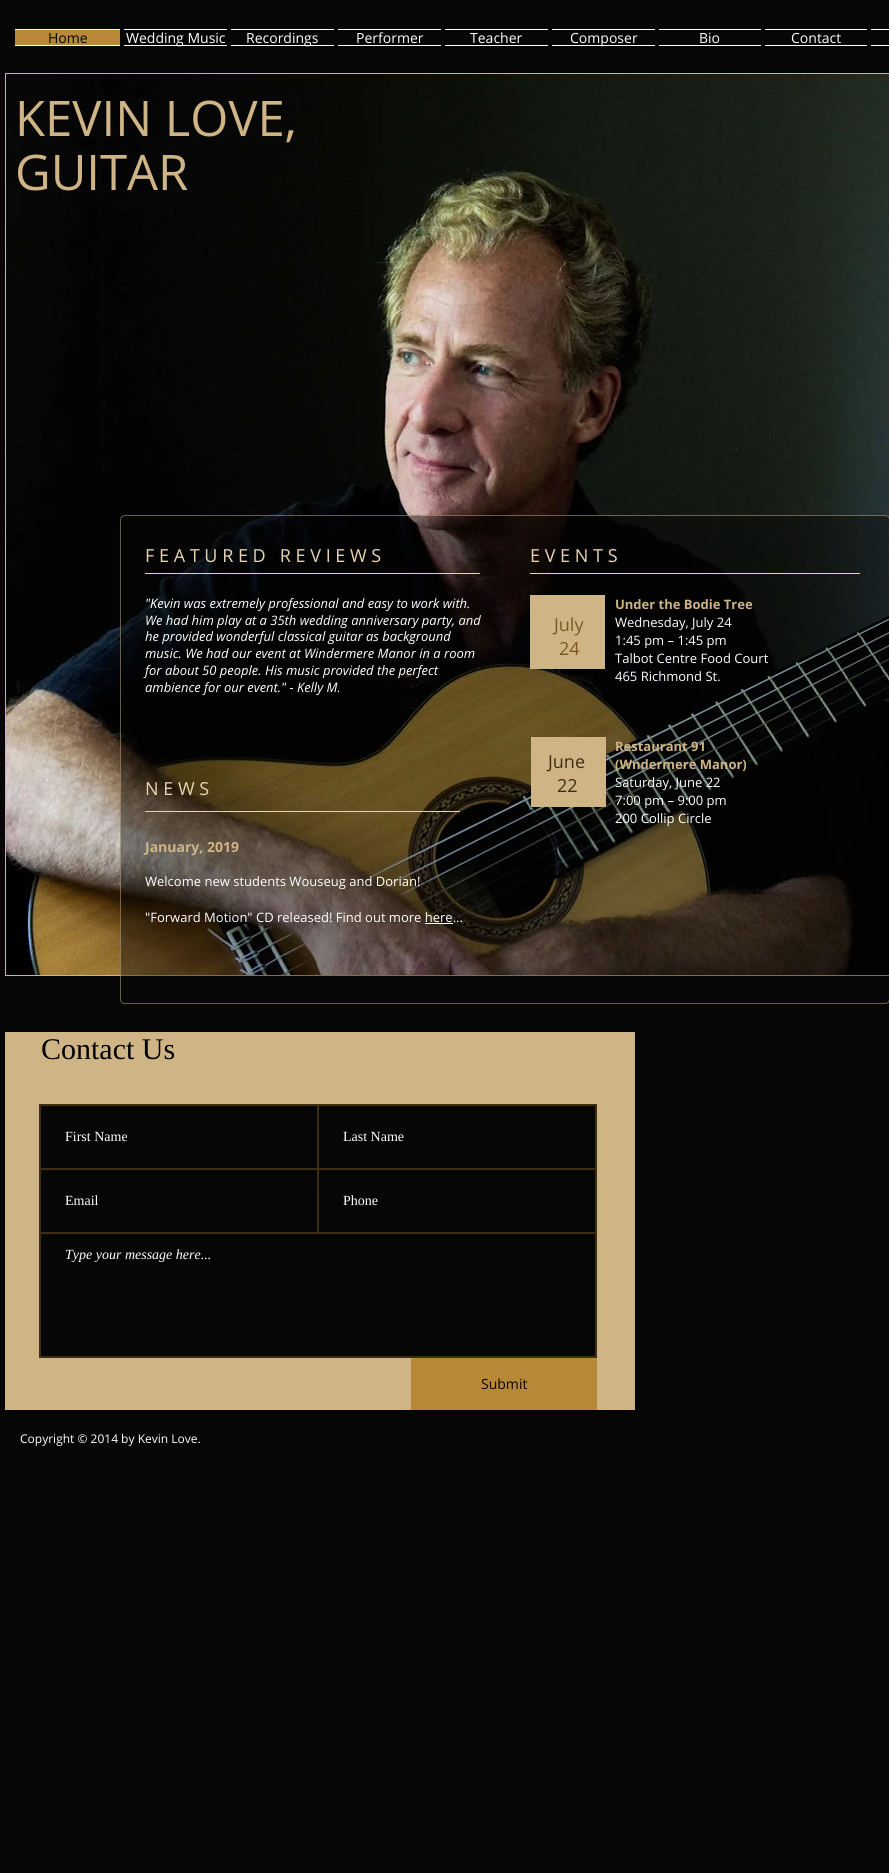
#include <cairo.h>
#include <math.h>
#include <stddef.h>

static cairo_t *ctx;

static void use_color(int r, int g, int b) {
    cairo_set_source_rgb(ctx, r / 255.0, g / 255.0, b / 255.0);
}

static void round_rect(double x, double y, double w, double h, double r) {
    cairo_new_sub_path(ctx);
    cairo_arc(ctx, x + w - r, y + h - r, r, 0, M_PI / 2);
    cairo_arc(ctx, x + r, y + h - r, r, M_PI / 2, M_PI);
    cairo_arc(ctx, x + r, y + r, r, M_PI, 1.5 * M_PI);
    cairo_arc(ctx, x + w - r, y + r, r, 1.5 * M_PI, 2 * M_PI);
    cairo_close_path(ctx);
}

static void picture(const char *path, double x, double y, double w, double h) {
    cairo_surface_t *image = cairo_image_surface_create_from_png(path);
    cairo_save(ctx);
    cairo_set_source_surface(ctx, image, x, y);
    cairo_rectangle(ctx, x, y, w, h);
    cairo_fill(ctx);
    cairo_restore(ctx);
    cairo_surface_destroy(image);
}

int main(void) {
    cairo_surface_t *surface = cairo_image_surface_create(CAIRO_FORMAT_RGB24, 889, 1873);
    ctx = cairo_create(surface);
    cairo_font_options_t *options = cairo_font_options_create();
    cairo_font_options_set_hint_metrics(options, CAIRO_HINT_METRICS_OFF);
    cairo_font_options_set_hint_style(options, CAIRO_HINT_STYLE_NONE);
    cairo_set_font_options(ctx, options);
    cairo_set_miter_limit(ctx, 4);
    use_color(7, 6, 6);
    cairo_paint(ctx);
    use_color(183, 136, 55);
    cairo_rectangle(ctx, 15, 30, 105, 15);
    cairo_fill(ctx);
    use_color(255, 255, 255);
    cairo_rectangle(ctx, 15, 29, 105, 1);
    cairo_fill(ctx);
    cairo_rectangle(ctx, 15, 45, 105, 1);
    cairo_fill(ctx);
    cairo_select_font_face(ctx, "Open Sans", CAIRO_FONT_SLANT_NORMAL, CAIRO_FONT_WEIGHT_NORMAL);
    cairo_set_font_size(ctx, 14);
    use_color(7, 6, 6);
    cairo_move_to(ctx, 48, 43);
    cairo_show_text(ctx, "Home");
    use_color(255, 255, 255);
    cairo_rectangle(ctx, 124, 29, 103, 1);
    cairo_fill(ctx);
    cairo_rectangle(ctx, 124, 45, 103, 1);
    cairo_fill(ctx);
    cairo_move_to(ctx, 126, 43);
    cairo_show_text(ctx, "Wedding Music");
    cairo_rectangle(ctx, 231, 29, 103, 1);
    cairo_fill(ctx);
    cairo_rectangle(ctx, 231, 45, 103, 1);
    cairo_fill(ctx);
    cairo_move_to(ctx, 246, 43);
    cairo_show_text(ctx, "Recordings");
    cairo_rectangle(ctx, 338, 29, 103, 1);
    cairo_fill(ctx);
    cairo_rectangle(ctx, 338, 45, 103, 1);
    cairo_fill(ctx);
    cairo_move_to(ctx, 356, 43);
    cairo_show_text(ctx, "Performer");
    cairo_rectangle(ctx, 445, 29, 103, 1);
    cairo_fill(ctx);
    cairo_rectangle(ctx, 445, 45, 103, 1);
    cairo_fill(ctx);
    cairo_move_to(ctx, 470, 43);
    cairo_show_text(ctx, "Teacher");
    cairo_rectangle(ctx, 552, 29, 103, 1);
    cairo_fill(ctx);
    cairo_rectangle(ctx, 552, 45, 103, 1);
    cairo_fill(ctx);
    cairo_move_to(ctx, 570, 43);
    cairo_show_text(ctx, "Composer");
    cairo_rectangle(ctx, 659, 29, 102, 1);
    cairo_fill(ctx);
    cairo_rectangle(ctx, 659, 45, 102, 1);
    cairo_fill(ctx);
    cairo_move_to(ctx, 699, 43);
    cairo_show_text(ctx, "Bio");
    cairo_rectangle(ctx, 765, 29, 102, 1);
    cairo_fill(ctx);
    cairo_rectangle(ctx, 765, 45, 102, 1);
    cairo_fill(ctx);
    cairo_move_to(ctx, 791, 43);
    cairo_show_text(ctx, "Contact");
    cairo_rectangle(ctx, 871, 29, 18, 1);
    cairo_fill(ctx);
    cairo_rectangle(ctx, 871, 45, 18, 1);
    cairo_fill(ctx);
    use_color(207, 180, 134);
    cairo_rectangle(ctx, 5, 73, 884, 903);
    cairo_fill(ctx);
    picture("img1.png", 6, 74, 883, 901);
    cairo_set_font_size(ctx, 49);
    cairo_move_to(ctx, 15, 136);
    cairo_show_text(ctx, "KEVIN LOVE,");
    cairo_move_to(ctx, 15, 190);
    cairo_show_text(ctx, "GUITAR");
    cairo_set_source_rgba(ctx, 0.027, 0.024, 0.024, 0.4);
    round_rect(120, 515, 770, 489, 5);
    cairo_fill(ctx);
    round_rect(120.5, 515.5, 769, 488, 4.5);
    cairo_set_source_rgba(ctx, 0.812, 0.706, 0.525, 0.5);
    cairo_set_line_width(ctx, 1);
    cairo_stroke(ctx);
    cairo_set_font_size(ctx, 18);
    use_color(231, 211, 177);
    cairo_move_to(ctx, 145, 562);
    cairo_show_text(ctx, "F E A T U R E D   R E V I E W S");
    cairo_move_to(ctx, 530, 562);
    cairo_show_text(ctx, "E V E N T S");
    cairo_rectangle(ctx, 145, 573, 335, 1);
    cairo_fill(ctx);
    cairo_rectangle(ctx, 530, 573, 330, 1);
    cairo_fill(ctx);
    cairo_select_font_face(ctx, "Open Sans", CAIRO_FONT_SLANT_ITALIC, CAIRO_FONT_WEIGHT_NORMAL);
    cairo_set_font_size(ctx, 13);
    use_color(255, 255, 255);
    cairo_move_to(ctx, 145, 608);
    cairo_show_text(ctx, "\"Kevin was extremely professional and easy to work with.");
    cairo_move_to(ctx, 145, 625);
    cairo_show_text(ctx, "We had him play at a 35th wedding anniversary party, and");
    cairo_move_to(ctx, 145, 641);
    cairo_show_text(ctx, "he provided wonderful classical guitar as background");
    cairo_move_to(ctx, 145, 658);
    cairo_show_text(ctx, "music. We had our event at Windermere Manor in a room");
    cairo_move_to(ctx, 145, 675);
    cairo_show_text(ctx, "for about 50 people. His music provided the perfect");
    cairo_move_to(ctx, 145, 692);
    cairo_show_text(ctx, "ambience for our event.\" - Kelly M.");
    use_color(207, 180, 134);
    cairo_rectangle(ctx, 530, 595, 75, 74);
    cairo_fill(ctx);
    cairo_select_font_face(ctx, "Open Sans", CAIRO_FONT_SLANT_NORMAL, CAIRO_FONT_WEIGHT_NORMAL);
    cairo_set_font_size(ctx, 18);
    use_color(122, 90, 36);
    cairo_move_to(ctx, 554, 631);
    cairo_show_text(ctx, "July");
    cairo_move_to(ctx, 559, 655);
    cairo_show_text(ctx, "24");
    cairo_select_font_face(ctx, "Open Sans", CAIRO_FONT_SLANT_NORMAL, CAIRO_FONT_WEIGHT_BOLD);
    cairo_set_font_size(ctx, 13);
    use_color(207, 180, 134);
    cairo_move_to(ctx, 615, 609);
    cairo_show_text(ctx, "Under the Bodie Tree");
    cairo_select_font_face(ctx, "Open Sans", CAIRO_FONT_SLANT_NORMAL, CAIRO_FONT_WEIGHT_NORMAL);
    use_color(255, 255, 255);
    cairo_move_to(ctx, 615, 627);
    cairo_show_text(ctx, "Wednesday, July 24");
    cairo_move_to(ctx, 615, 645);
    cairo_show_text(ctx, "1:45 pm – 1:45 pm");
    cairo_move_to(ctx, 615, 663);
    cairo_show_text(ctx, "Talbot Centre Food Court");
    cairo_move_to(ctx, 615, 681);
    cairo_show_text(ctx, "465 Richmond St.");
    cairo_set_font_size(ctx, 18);
    use_color(231, 211, 177);
    cairo_move_to(ctx, 145, 795);
    cairo_show_text(ctx, "N E W S");
    use_color(207, 180, 134);
    cairo_rectangle(ctx, 531, 737, 75, 70);
    cairo_fill(ctx);
    use_color(61, 45, 18);
    cairo_move_to(ctx, 548, 768);
    cairo_show_text(ctx, "June");
    cairo_move_to(ctx, 557, 792);
    cairo_show_text(ctx, "22");
    cairo_select_font_face(ctx, "Open Sans", CAIRO_FONT_SLANT_NORMAL, CAIRO_FONT_WEIGHT_BOLD);
    cairo_set_font_size(ctx, 13);
    use_color(207, 180, 134);
    cairo_move_to(ctx, 615, 751);
    cairo_show_text(ctx, "Restaurant 91");
    cairo_move_to(ctx, 615, 769);
    cairo_show_text(ctx, "(Wndermere Manor)");
    cairo_select_font_face(ctx, "Open Sans", CAIRO_FONT_SLANT_NORMAL, CAIRO_FONT_WEIGHT_NORMAL);
    use_color(255, 255, 255);
    cairo_move_to(ctx, 615, 787);
    cairo_show_text(ctx, "Saturday, June 22");
    cairo_move_to(ctx, 615, 805);
    cairo_show_text(ctx, "7:00 pm – 9:00 pm");
    cairo_move_to(ctx, 615, 823);
    cairo_show_text(ctx, "200 Collip Circle");
    use_color(231, 211, 177);
    cairo_rectangle(ctx, 145, 811, 315, 1);
    cairo_fill(ctx);
    cairo_select_font_face(ctx, "Open Sans", CAIRO_FONT_SLANT_NORMAL, CAIRO_FONT_WEIGHT_BOLD);
    cairo_set_font_size(ctx, 14);
    use_color(207, 180, 134);
    cairo_move_to(ctx, 145, 852);
    cairo_show_text(ctx, "January, 2019");
    cairo_select_font_face(ctx, "Open Sans", CAIRO_FONT_SLANT_NORMAL, CAIRO_FONT_WEIGHT_NORMAL);
    cairo_set_font_size(ctx, 13);
    use_color(255, 255, 255);
    cairo_move_to(ctx, 145, 886);
    cairo_show_text(ctx, "Welcome new students Wouseug and Dorian!");
    cairo_move_to(ctx, 145, 922);
    cairo_show_text(ctx, "\"Forward Motion\" CD released! Find out more here...");
    cairo_rectangle(ctx, 425, 923, 28, 1);
    cairo_fill(ctx);
    use_color(207, 180, 134);
    cairo_rectangle(ctx, 5, 1032, 630, 378);
    cairo_fill(ctx);
    cairo_select_font_face(ctx, "Liberation Serif", CAIRO_FONT_SLANT_NORMAL, CAIRO_FONT_WEIGHT_NORMAL);
    cairo_set_font_size(ctx, 30);
    use_color(0, 0, 0);
    cairo_move_to(ctx, 41, 1059);
    cairo_show_text(ctx, "Contact Us");
    use_color(7, 6, 6);
    cairo_rectangle(ctx, 40, 1105, 278, 64);
    cairo_fill_preserve(ctx);
    use_color(61, 45, 18);
    cairo_set_line_width(ctx, 2);
    cairo_stroke(ctx);
    cairo_set_font_size(ctx, 14);
    use_color(255, 255, 255);
    cairo_move_to(ctx, 65, 1141);
    cairo_show_text(ctx, "First Name");
    use_color(7, 6, 6);
    cairo_rectangle(ctx, 318, 1105, 278, 64);
    cairo_fill_preserve(ctx);
    use_color(61, 45, 18);
    cairo_stroke(ctx);
    use_color(255, 255, 255);
    cairo_move_to(ctx, 343, 1141);
    cairo_show_text(ctx, "Last Name");
    use_color(7, 6, 6);
    cairo_rectangle(ctx, 40, 1169, 278, 64);
    cairo_fill_preserve(ctx);
    use_color(61, 45, 18);
    cairo_stroke(ctx);
    use_color(255, 255, 255);
    cairo_move_to(ctx, 65, 1205);
    cairo_show_text(ctx, "Email");
    use_color(7, 6, 6);
    cairo_rectangle(ctx, 318, 1169, 278, 64);
    cairo_fill_preserve(ctx);
    use_color(61, 45, 18);
    cairo_stroke(ctx);
    use_color(255, 255, 255);
    cairo_move_to(ctx, 343, 1205);
    cairo_show_text(ctx, "Phone");
    use_color(7, 6, 6);
    cairo_rectangle(ctx, 40, 1233, 556, 124);
    cairo_fill_preserve(ctx);
    use_color(61, 45, 18);
    cairo_stroke(ctx);
    cairo_select_font_face(ctx, "Liberation Serif", CAIRO_FONT_SLANT_ITALIC, CAIRO_FONT_WEIGHT_NORMAL);
    use_color(255, 255, 255);
    cairo_move_to(ctx, 65, 1259);
    cairo_show_text(ctx, "Type your message here...");
    use_color(183, 136, 55);
    cairo_rectangle(ctx, 411, 1358, 186, 52);
    cairo_fill(ctx);
    cairo_select_font_face(ctx, "Open Sans", CAIRO_FONT_SLANT_NORMAL, CAIRO_FONT_WEIGHT_NORMAL);
    use_color(7, 6, 6);
    cairo_move_to(ctx, 481, 1389);
    cairo_show_text(ctx, "Submit");
    cairo_set_font_size(ctx, 12);
    use_color(255, 255, 255);
    cairo_move_to(ctx, 20, 1443);
    cairo_show_text(ctx, "Copyright © 2014 by Kevin Love.");
    cairo_surface_write_to_png(surface, "result.png");
    cairo_font_options_destroy(options);
    cairo_destroy(ctx);
    cairo_surface_destroy(surface);
    return 0;
}
